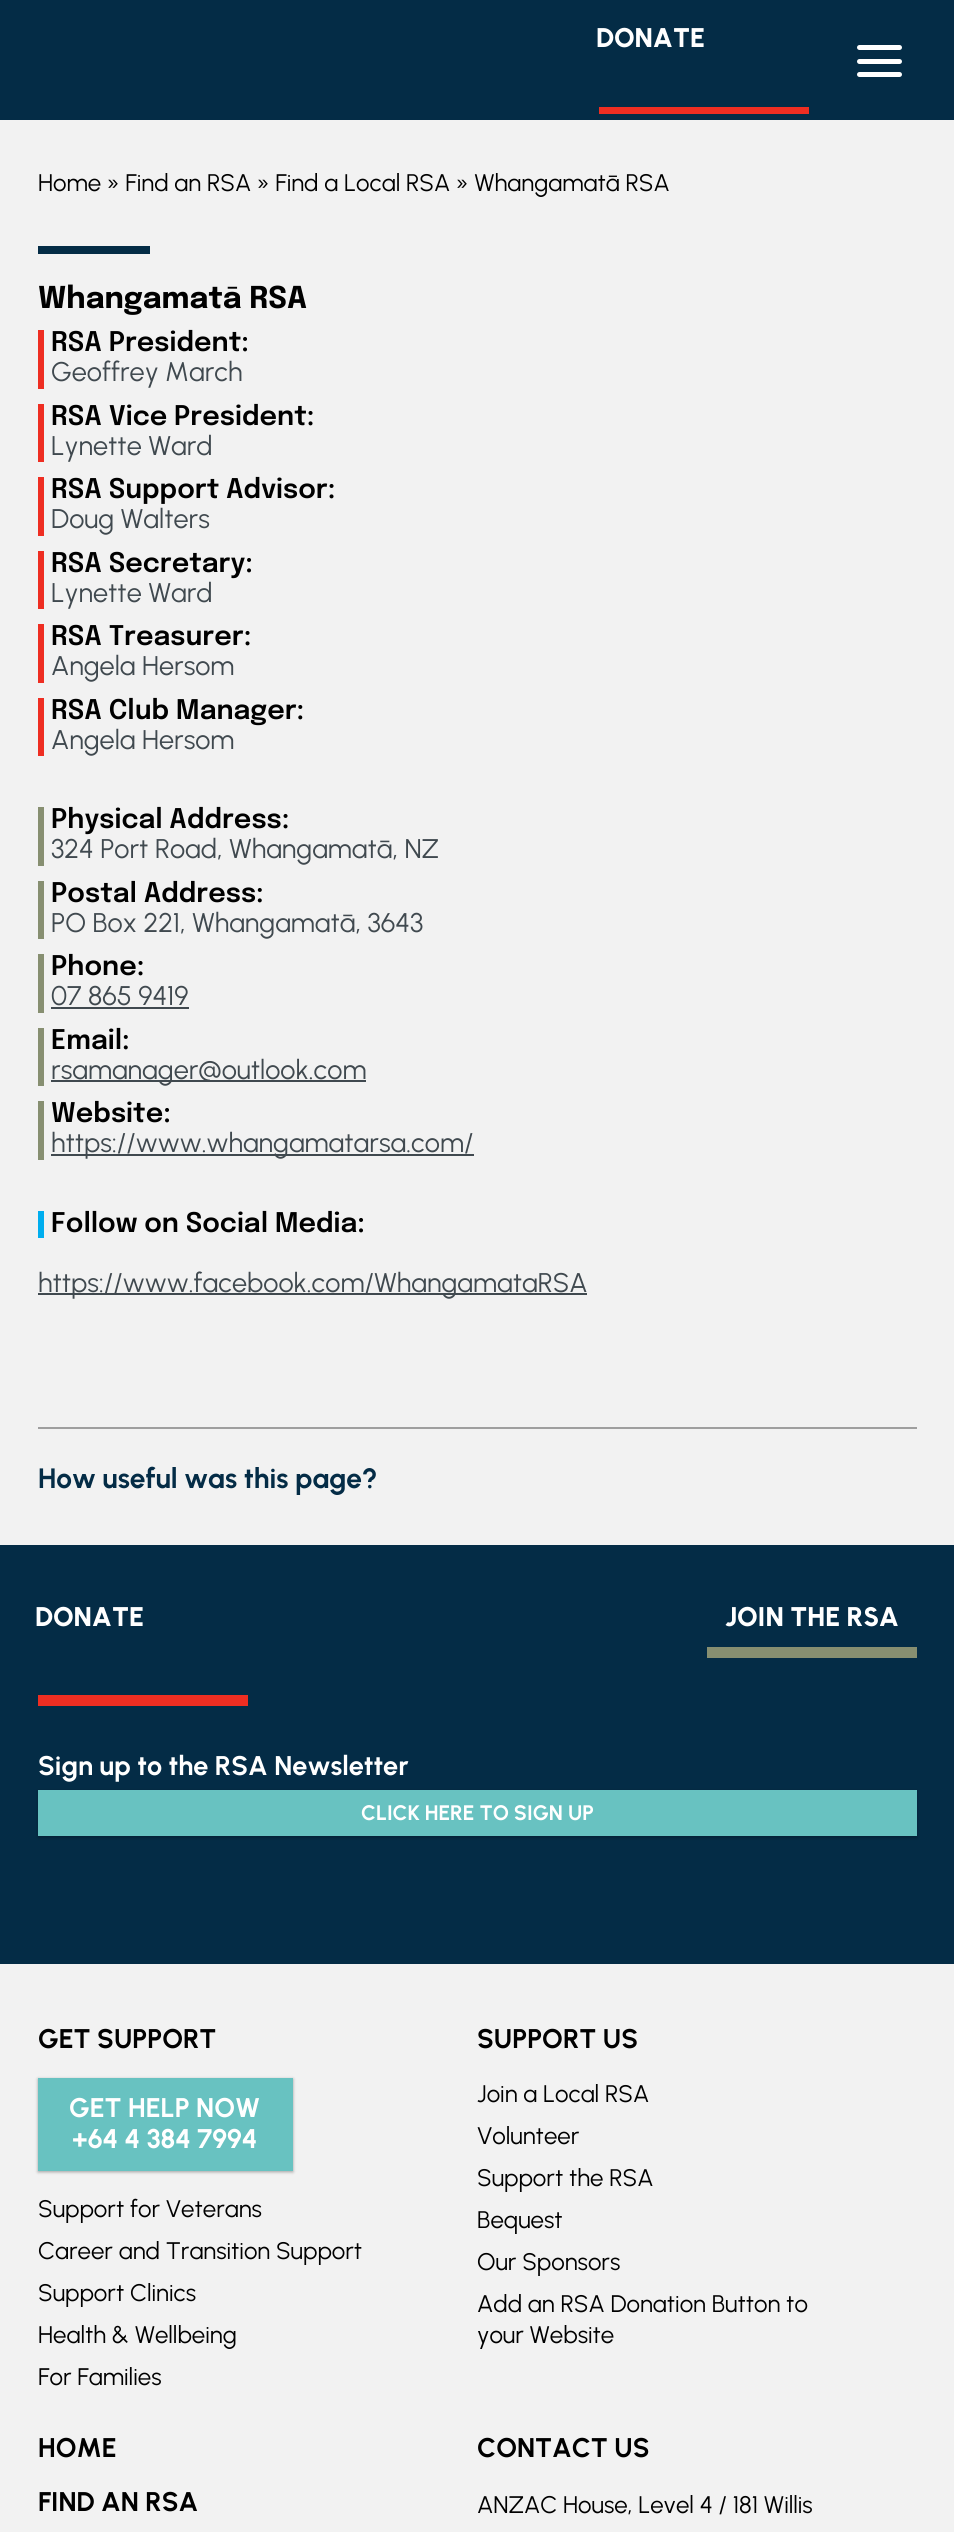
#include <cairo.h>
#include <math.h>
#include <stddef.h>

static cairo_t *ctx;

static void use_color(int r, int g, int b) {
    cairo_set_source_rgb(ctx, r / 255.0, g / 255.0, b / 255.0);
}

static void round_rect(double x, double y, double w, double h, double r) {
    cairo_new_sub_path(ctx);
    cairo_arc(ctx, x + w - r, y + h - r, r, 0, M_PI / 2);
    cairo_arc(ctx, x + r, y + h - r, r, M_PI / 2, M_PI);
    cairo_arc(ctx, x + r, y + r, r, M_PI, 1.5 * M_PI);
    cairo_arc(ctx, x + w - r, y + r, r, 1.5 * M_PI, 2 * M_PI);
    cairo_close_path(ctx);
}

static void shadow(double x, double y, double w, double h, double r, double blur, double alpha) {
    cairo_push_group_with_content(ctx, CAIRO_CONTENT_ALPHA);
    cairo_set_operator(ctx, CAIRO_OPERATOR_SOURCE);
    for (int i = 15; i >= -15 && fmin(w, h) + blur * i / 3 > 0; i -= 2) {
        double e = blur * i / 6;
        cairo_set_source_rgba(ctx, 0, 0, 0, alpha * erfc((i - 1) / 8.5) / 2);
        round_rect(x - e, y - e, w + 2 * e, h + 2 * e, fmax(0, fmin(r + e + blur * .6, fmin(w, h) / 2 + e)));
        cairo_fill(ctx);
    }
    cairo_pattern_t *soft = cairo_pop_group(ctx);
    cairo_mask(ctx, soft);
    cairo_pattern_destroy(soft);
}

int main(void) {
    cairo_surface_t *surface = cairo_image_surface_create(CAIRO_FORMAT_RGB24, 954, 2532);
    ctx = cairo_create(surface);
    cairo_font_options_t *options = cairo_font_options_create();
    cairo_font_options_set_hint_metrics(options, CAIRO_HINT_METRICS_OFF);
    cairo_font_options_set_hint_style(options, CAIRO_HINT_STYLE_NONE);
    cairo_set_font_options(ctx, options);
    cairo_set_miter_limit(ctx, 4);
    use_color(242, 242, 242);
    cairo_paint(ctx);
    use_color(4, 44, 70);
    cairo_rectangle(ctx, 0, 0, 954, 120);
    cairo_fill(ctx);
    use_color(238, 46, 34);
    cairo_rectangle(ctx, 599, 107, 210, 7);
    cairo_fill(ctx);
    cairo_select_font_face(ctx, "Urbanist ExtraBold", CAIRO_FONT_SLANT_NORMAL, CAIRO_FONT_WEIGHT_NORMAL);
    cairo_set_font_size(ctx, 27);
    use_color(255, 255, 255);
    cairo_move_to(ctx, 596, 47);
    cairo_show_text(ctx, "DONATE");
    round_rect(857, 59, 45, 5, 2.5);
    cairo_fill(ctx);
    round_rect(857, 45, 45, 5, 2.5);
    cairo_fill(ctx);
    round_rect(857, 72, 45, 5, 2.5);
    cairo_fill(ctx);
    cairo_select_font_face(ctx, "Urbanist", CAIRO_FONT_SLANT_NORMAL, CAIRO_FONT_WEIGHT_NORMAL);
    cairo_set_font_size(ctx, 24);
    use_color(0, 0, 0);
    cairo_move_to(ctx, 38, 191);
    cairo_show_text(ctx, "Home » Find an RSA » Find a Local RSA » Whangamatā RSA");
    use_color(4, 44, 70);
    cairo_rectangle(ctx, 38, 246, 112, 8);
    cairo_fill(ctx);
    cairo_select_font_face(ctx, "Epilogue", CAIRO_FONT_SLANT_NORMAL, CAIRO_FONT_WEIGHT_BOLD);
    cairo_set_font_size(ctx, 30);
    use_color(0, 0, 0);
    cairo_move_to(ctx, 38, 308);
    cairo_show_text(ctx, "Whangamatā RSA");
    use_color(238, 46, 34);
    cairo_rectangle(ctx, 38, 330, 6, 59);
    cairo_fill(ctx);
    cairo_select_font_face(ctx, "Epilogue SemiBold", CAIRO_FONT_SLANT_NORMAL, CAIRO_FONT_WEIGHT_NORMAL);
    cairo_set_font_size(ctx, 27);
    use_color(0, 0, 0);
    cairo_move_to(ctx, 51, 351);
    cairo_show_text(ctx, "RSA President:");
    cairo_select_font_face(ctx, "Urbanist", CAIRO_FONT_SLANT_NORMAL, CAIRO_FONT_WEIGHT_NORMAL);
    use_color(64, 73, 79);
    cairo_move_to(ctx, 51, 381);
    cairo_show_text(ctx, "Geoffrey March");
    use_color(238, 46, 34);
    cairo_rectangle(ctx, 38, 404, 6, 58);
    cairo_fill(ctx);
    cairo_select_font_face(ctx, "Epilogue SemiBold", CAIRO_FONT_SLANT_NORMAL, CAIRO_FONT_WEIGHT_NORMAL);
    use_color(0, 0, 0);
    cairo_move_to(ctx, 51, 425);
    cairo_show_text(ctx, "RSA Vice President:");
    cairo_select_font_face(ctx, "Urbanist", CAIRO_FONT_SLANT_NORMAL, CAIRO_FONT_WEIGHT_NORMAL);
    use_color(64, 73, 79);
    cairo_move_to(ctx, 51, 455);
    cairo_show_text(ctx, "Lynette Ward");
    use_color(238, 46, 34);
    cairo_rectangle(ctx, 38, 477, 6, 59);
    cairo_fill(ctx);
    cairo_select_font_face(ctx, "Epilogue SemiBold", CAIRO_FONT_SLANT_NORMAL, CAIRO_FONT_WEIGHT_NORMAL);
    use_color(0, 0, 0);
    cairo_move_to(ctx, 51, 498);
    cairo_show_text(ctx, "RSA Support Advisor:");
    cairo_select_font_face(ctx, "Urbanist", CAIRO_FONT_SLANT_NORMAL, CAIRO_FONT_WEIGHT_NORMAL);
    use_color(64, 73, 79);
    cairo_move_to(ctx, 51, 528);
    cairo_show_text(ctx, "Doug Walters");
    use_color(238, 46, 34);
    cairo_rectangle(ctx, 38, 551, 6, 58);
    cairo_fill(ctx);
    cairo_select_font_face(ctx, "Epilogue SemiBold", CAIRO_FONT_SLANT_NORMAL, CAIRO_FONT_WEIGHT_NORMAL);
    use_color(0, 0, 0);
    cairo_move_to(ctx, 51, 572);
    cairo_show_text(ctx, "RSA Secretary:");
    cairo_select_font_face(ctx, "Urbanist", CAIRO_FONT_SLANT_NORMAL, CAIRO_FONT_WEIGHT_NORMAL);
    use_color(64, 73, 79);
    cairo_move_to(ctx, 51, 602);
    cairo_show_text(ctx, "Lynette Ward");
    use_color(238, 46, 34);
    cairo_rectangle(ctx, 38, 624, 6, 59);
    cairo_fill(ctx);
    cairo_select_font_face(ctx, "Epilogue SemiBold", CAIRO_FONT_SLANT_NORMAL, CAIRO_FONT_WEIGHT_NORMAL);
    use_color(0, 0, 0);
    cairo_move_to(ctx, 51, 645);
    cairo_show_text(ctx, "RSA Treasurer:");
    cairo_select_font_face(ctx, "Urbanist", CAIRO_FONT_SLANT_NORMAL, CAIRO_FONT_WEIGHT_NORMAL);
    use_color(64, 73, 79);
    cairo_move_to(ctx, 51, 675);
    cairo_show_text(ctx, "Angela Hersom");
    use_color(238, 46, 34);
    cairo_rectangle(ctx, 38, 698, 6, 58);
    cairo_fill(ctx);
    cairo_select_font_face(ctx, "Epilogue SemiBold", CAIRO_FONT_SLANT_NORMAL, CAIRO_FONT_WEIGHT_NORMAL);
    use_color(0, 0, 0);
    cairo_move_to(ctx, 51, 719);
    cairo_show_text(ctx, "RSA Club Manager:");
    cairo_select_font_face(ctx, "Urbanist", CAIRO_FONT_SLANT_NORMAL, CAIRO_FONT_WEIGHT_NORMAL);
    use_color(64, 73, 79);
    cairo_move_to(ctx, 51, 749);
    cairo_show_text(ctx, "Angela Hersom");
    use_color(135, 143, 113);
    cairo_rectangle(ctx, 38, 807, 6, 59);
    cairo_fill(ctx);
    cairo_select_font_face(ctx, "Epilogue SemiBold", CAIRO_FONT_SLANT_NORMAL, CAIRO_FONT_WEIGHT_NORMAL);
    use_color(0, 0, 0);
    cairo_move_to(ctx, 51, 828);
    cairo_show_text(ctx, "Physical Address:");
    cairo_select_font_face(ctx, "Urbanist", CAIRO_FONT_SLANT_NORMAL, CAIRO_FONT_WEIGHT_NORMAL);
    use_color(64, 73, 79);
    cairo_move_to(ctx, 51, 858);
    cairo_show_text(ctx, "324 Port Road, Whangamatā, NZ");
    use_color(135, 143, 113);
    cairo_rectangle(ctx, 38, 881, 6, 58);
    cairo_fill(ctx);
    cairo_select_font_face(ctx, "Epilogue SemiBold", CAIRO_FONT_SLANT_NORMAL, CAIRO_FONT_WEIGHT_NORMAL);
    use_color(0, 0, 0);
    cairo_move_to(ctx, 51, 902);
    cairo_show_text(ctx, "Postal Address:");
    cairo_select_font_face(ctx, "Urbanist", CAIRO_FONT_SLANT_NORMAL, CAIRO_FONT_WEIGHT_NORMAL);
    use_color(64, 73, 79);
    cairo_move_to(ctx, 51, 932);
    cairo_show_text(ctx, "PO Box 221, Whangamatā, 3643");
    use_color(135, 143, 113);
    cairo_rectangle(ctx, 38, 954, 6, 59);
    cairo_fill(ctx);
    cairo_select_font_face(ctx, "Epilogue SemiBold", CAIRO_FONT_SLANT_NORMAL, CAIRO_FONT_WEIGHT_NORMAL);
    use_color(0, 0, 0);
    cairo_move_to(ctx, 51, 975);
    cairo_show_text(ctx, "Phone:");
    cairo_select_font_face(ctx, "Urbanist", CAIRO_FONT_SLANT_NORMAL, CAIRO_FONT_WEIGHT_NORMAL);
    use_color(64, 73, 79);
    cairo_move_to(ctx, 51, 1005);
    cairo_show_text(ctx, "07 865 9419");
    cairo_rectangle(ctx, 51, 1007, 138, 2);
    cairo_fill(ctx);
    use_color(135, 143, 113);
    cairo_rectangle(ctx, 38, 1028, 6, 58);
    cairo_fill(ctx);
    cairo_select_font_face(ctx, "Epilogue SemiBold", CAIRO_FONT_SLANT_NORMAL, CAIRO_FONT_WEIGHT_NORMAL);
    use_color(0, 0, 0);
    cairo_move_to(ctx, 51, 1049);
    cairo_show_text(ctx, "Email:");
    use_color(64, 73, 79);
    cairo_rectangle(ctx, 51, 1080, 315, 2);
    cairo_fill(ctx);
    cairo_select_font_face(ctx, "Urbanist", CAIRO_FONT_SLANT_NORMAL, CAIRO_FONT_WEIGHT_NORMAL);
    cairo_move_to(ctx, 51, 1079);
    cairo_show_text(ctx, "rsamanager@outlook.com");
    use_color(135, 143, 113);
    cairo_rectangle(ctx, 38, 1101, 6, 59);
    cairo_fill(ctx);
    cairo_select_font_face(ctx, "Epilogue SemiBold", CAIRO_FONT_SLANT_NORMAL, CAIRO_FONT_WEIGHT_NORMAL);
    use_color(0, 0, 0);
    cairo_move_to(ctx, 51, 1122);
    cairo_show_text(ctx, "Website:");
    use_color(64, 73, 79);
    cairo_rectangle(ctx, 51, 1154, 423, 2);
    cairo_fill(ctx);
    cairo_select_font_face(ctx, "Urbanist", CAIRO_FONT_SLANT_NORMAL, CAIRO_FONT_WEIGHT_NORMAL);
    cairo_move_to(ctx, 51, 1152);
    cairo_show_text(ctx, "https://www.whangamatarsa.com/");
    use_color(0, 174, 239);
    cairo_rectangle(ctx, 38, 1211, 6, 27);
    cairo_fill(ctx);
    cairo_select_font_face(ctx, "Epilogue SemiBold", CAIRO_FONT_SLANT_NORMAL, CAIRO_FONT_WEIGHT_NORMAL);
    use_color(0, 0, 0);
    cairo_move_to(ctx, 51, 1232);
    cairo_show_text(ctx, "Follow on Social Media:");
    use_color(64, 73, 79);
    cairo_rectangle(ctx, 38, 1293, 549, 2);
    cairo_fill(ctx);
    cairo_select_font_face(ctx, "Urbanist", CAIRO_FONT_SLANT_NORMAL, CAIRO_FONT_WEIGHT_NORMAL);
    cairo_move_to(ctx, 38, 1292);
    cairo_show_text(ctx, "https://www.facebook.com/WhangamataRSA");
    use_color(159, 159, 159);
    cairo_rectangle(ctx, 38, 1427, 879, 2);
    cairo_fill(ctx);
    cairo_select_font_face(ctx, "Urbanist", CAIRO_FONT_SLANT_NORMAL, CAIRO_FONT_WEIGHT_BOLD);
    cairo_set_font_size(ctx, 28);
    use_color(4, 44, 70);
    cairo_move_to(ctx, 38, 1488);
    cairo_show_text(ctx, "How useful was this page?");
    cairo_rectangle(ctx, 0, 1545, 954, 419);
    cairo_fill(ctx);
    use_color(238, 46, 34);
    cairo_rectangle(ctx, 38, 1695, 210, 11);
    cairo_fill(ctx);
    cairo_select_font_face(ctx, "Urbanist ExtraBold", CAIRO_FONT_SLANT_NORMAL, CAIRO_FONT_WEIGHT_NORMAL);
    cairo_set_font_size(ctx, 27);
    use_color(255, 255, 255);
    cairo_move_to(ctx, 35, 1626);
    cairo_show_text(ctx, "DONATE");
    use_color(135, 143, 113);
    cairo_rectangle(ctx, 707, 1647, 210, 11);
    cairo_fill(ctx);
    use_color(255, 255, 255);
    cairo_move_to(ctx, 725, 1626);
    cairo_show_text(ctx, "JOIN THE RSA");
    cairo_select_font_face(ctx, "Urbanist", CAIRO_FONT_SLANT_NORMAL, CAIRO_FONT_WEIGHT_BOLD);
    cairo_move_to(ctx, 38, 1775);
    cairo_show_text(ctx, "Sign up to the RSA Newsletter");
    use_color(0, 0, 0);
    shadow(38, 1791, 879, 47, 0, 1.5, 0.24);
    use_color(104, 194, 193);
    cairo_rectangle(ctx, 38, 1790, 879, 46);
    cairo_fill(ctx);
    cairo_set_font_size(ctx, 21);
    use_color(255, 255, 255);
    cairo_move_to(ctx, 361, 1820);
    cairo_show_text(ctx, "CLICK HERE TO SIGN UP");
    cairo_set_font_size(ctx, 27);
    use_color(0, 0, 0);
    cairo_move_to(ctx, 38, 2048);
    cairo_show_text(ctx, "GET SUPPORT");
    use_color(0, 0, 0);
    shadow(38, 2079, 255, 93, 0, 1.5, 0.24);
    shadow(38, 2079, 255, 93, 0, 2, 0.12);
    use_color(104, 194, 193);
    cairo_rectangle(ctx, 38, 2078, 255, 93);
    cairo_fill(ctx);
    use_color(255, 255, 255);
    cairo_move_to(ctx, 69, 2117);
    cairo_show_text(ctx, "GET HELP NOW");
    cairo_move_to(ctx, 72, 2148);
    cairo_show_text(ctx, "+64 4 384 7994");
    cairo_select_font_face(ctx, "Urbanist", CAIRO_FONT_SLANT_NORMAL, CAIRO_FONT_WEIGHT_NORMAL);
    cairo_set_font_size(ctx, 24);
    use_color(0, 0, 0);
    cairo_move_to(ctx, 38, 2217);
    cairo_show_text(ctx, "Support for Veterans");
    cairo_move_to(ctx, 38, 2259);
    cairo_show_text(ctx, "Career and Transition Support");
    cairo_move_to(ctx, 38, 2301);
    cairo_show_text(ctx, "Support Clinics");
    cairo_move_to(ctx, 38, 2343);
    cairo_show_text(ctx, "Health & Wellbeing");
    cairo_move_to(ctx, 38, 2385);
    cairo_show_text(ctx, "For Families");
    cairo_select_font_face(ctx, "Urbanist", CAIRO_FONT_SLANT_NORMAL, CAIRO_FONT_WEIGHT_BOLD);
    cairo_set_font_size(ctx, 27);
    cairo_move_to(ctx, 477, 2048);
    cairo_show_text(ctx, "SUPPORT US");
    cairo_select_font_face(ctx, "Urbanist", CAIRO_FONT_SLANT_NORMAL, CAIRO_FONT_WEIGHT_NORMAL);
    cairo_set_font_size(ctx, 24);
    cairo_move_to(ctx, 477, 2102);
    cairo_show_text(ctx, "Join a Local RSA");
    cairo_move_to(ctx, 477, 2144);
    cairo_show_text(ctx, "Volunteer");
    cairo_move_to(ctx, 477, 2186);
    cairo_show_text(ctx, "Support the RSA");
    cairo_move_to(ctx, 477, 2228);
    cairo_show_text(ctx, "Bequest");
    cairo_move_to(ctx, 477, 2270);
    cairo_show_text(ctx, "Our Sponsors");
    cairo_move_to(ctx, 477, 2312);
    cairo_show_text(ctx, "Add an RSA Donation Button to");
    cairo_move_to(ctx, 477, 2343);
    cairo_show_text(ctx, "your Website");
    cairo_select_font_face(ctx, "Urbanist", CAIRO_FONT_SLANT_NORMAL, CAIRO_FONT_WEIGHT_BOLD);
    cairo_set_font_size(ctx, 27);
    cairo_move_to(ctx, 38, 2457);
    cairo_show_text(ctx, "HOME");
    cairo_move_to(ctx, 38, 2511);
    cairo_show_text(ctx, "FIND AN RSA");
    cairo_move_to(ctx, 477, 2457);
    cairo_show_text(ctx, "CONTACT US");
    cairo_select_font_face(ctx, "Urbanist", CAIRO_FONT_SLANT_NORMAL, CAIRO_FONT_WEIGHT_NORMAL);
    cairo_set_font_size(ctx, 24);
    cairo_move_to(ctx, 477, 2513);
    cairo_show_text(ctx, "ANZAC House, Level 4 / 181 Willis");
    cairo_surface_write_to_png(surface, "result.png");
    cairo_font_options_destroy(options);
    cairo_destroy(ctx);
    cairo_surface_destroy(surface);
    return 0;
}
